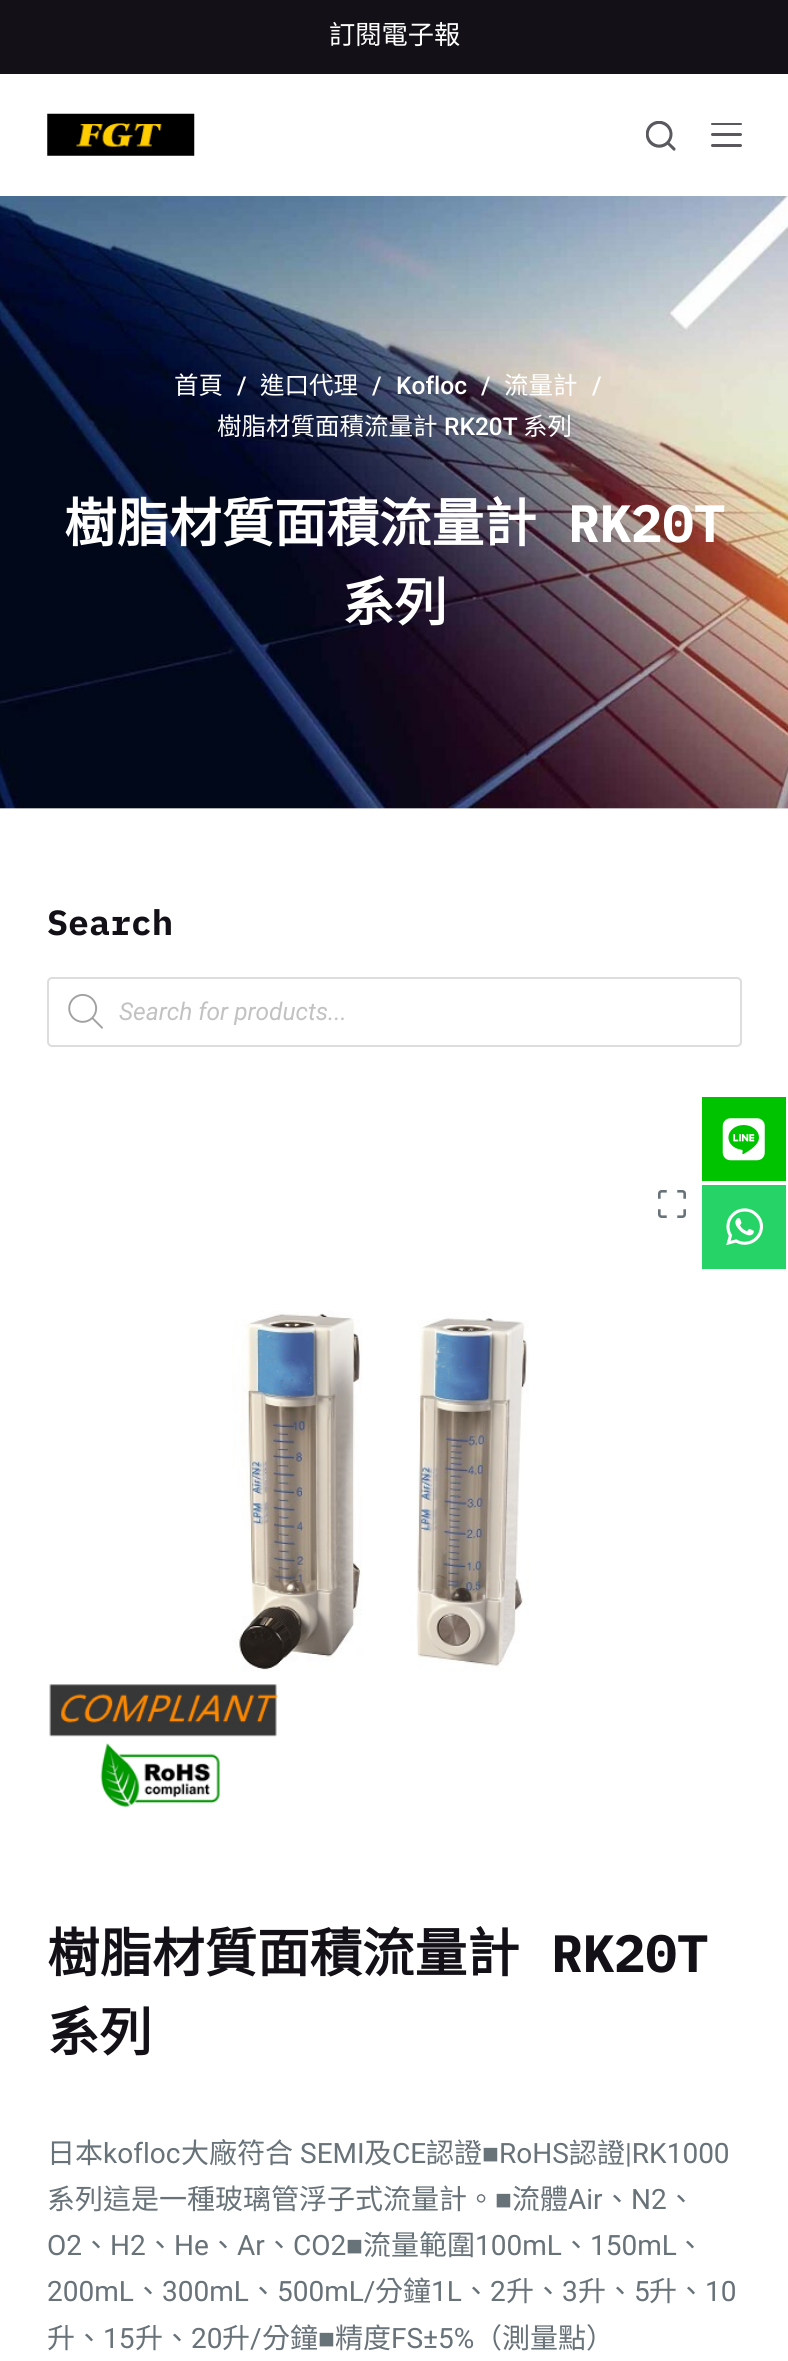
#include <cairo.h>
#include <math.h>
#include <stddef.h>

static cairo_t *ctx;

static void use_color(int r, int g, int b) {
    cairo_set_source_rgb(ctx, r / 255.0, g / 255.0, b / 255.0);
}

static void round_rect(double x, double y, double w, double h, double r) {
    cairo_new_sub_path(ctx);
    cairo_arc(ctx, x + w - r, y + h - r, r, 0, M_PI / 2);
    cairo_arc(ctx, x + r, y + h - r, r, M_PI / 2, M_PI);
    cairo_arc(ctx, x + r, y + r, r, M_PI, 1.5 * M_PI);
    cairo_arc(ctx, x + w - r, y + r, r, 1.5 * M_PI, 2 * M_PI);
    cairo_close_path(ctx);
}

static void picture(const char *path, double x, double y, double w, double h) {
    cairo_surface_t *image = cairo_image_surface_create_from_png(path);
    cairo_save(ctx);
    cairo_set_source_surface(ctx, image, x, y);
    cairo_rectangle(ctx, x, y, w, h);
    cairo_fill(ctx);
    cairo_restore(ctx);
    cairo_surface_destroy(image);
}

int main(void) {
    cairo_surface_t *surface = cairo_image_surface_create(CAIRO_FORMAT_RGB24, 788, 2361);
    ctx = cairo_create(surface);
    cairo_font_options_t *options = cairo_font_options_create();
    cairo_font_options_set_hint_metrics(options, CAIRO_HINT_METRICS_OFF);
    cairo_font_options_set_hint_style(options, CAIRO_HINT_STYLE_NONE);
    cairo_set_font_options(ctx, options);
    cairo_set_miter_limit(ctx, 4);
    use_color(255, 255, 255);
    cairo_paint(ctx);
    use_color(19, 17, 23);
    cairo_rectangle(ctx, 0, 0, 788, 74);
    cairo_fill(ctx);
    cairo_select_font_face(ctx, "Noto Sans CJK TC", CAIRO_FONT_SLANT_NORMAL, CAIRO_FONT_WEIGHT_NORMAL);
    cairo_set_font_size(ctx, 26.25);
    use_color(255, 255, 255);
    cairo_move_to(ctx, 329, 44);
    cairo_show_text(ctx, "訂閱電子報");
    picture("img1.png", 47, 113, 148, 43);
    picture("img2.png", 646, 121, 30, 30);
    use_color(90, 88, 93);
    round_rect(711, 123, 31, 2, 1);
    cairo_fill(ctx);
    round_rect(711, 133, 31, 3, 1.5);
    cairo_fill(ctx);
    round_rect(711, 144, 31, 3, 1.5);
    cairo_fill(ctx);
    use_color(232, 232, 232);
    cairo_rectangle(ctx, 0, 808, 788, 1);
    cairo_fill(ctx);
    picture("img3.png", 0, 196, 788, 613);
    cairo_set_font_size(ctx, 24.5);
    use_color(255, 255, 255);
    cairo_move_to(ctx, 174, 394);
    cairo_show_text(ctx, "首頁");
    cairo_select_font_face(ctx, "Roboto Medium", CAIRO_FONT_SLANT_NORMAL, CAIRO_FONT_WEIGHT_NORMAL);
    cairo_move_to(ctx, 237, 394);
    cairo_show_text(ctx, "/");
    cairo_select_font_face(ctx, "Noto Sans CJK TC", CAIRO_FONT_SLANT_NORMAL, CAIRO_FONT_WEIGHT_NORMAL);
    cairo_move_to(ctx, 260, 394);
    cairo_show_text(ctx, "進口代理");
    cairo_select_font_face(ctx, "Roboto Medium", CAIRO_FONT_SLANT_NORMAL, CAIRO_FONT_WEIGHT_NORMAL);
    cairo_move_to(ctx, 372, 394);
    cairo_show_text(ctx, "/");
    cairo_move_to(ctx, 396, 394);
    cairo_show_text(ctx, "Kofloc");
    cairo_move_to(ctx, 481, 394);
    cairo_show_text(ctx, "/");
    cairo_select_font_face(ctx, "Noto Sans CJK TC", CAIRO_FONT_SLANT_NORMAL, CAIRO_FONT_WEIGHT_NORMAL);
    cairo_move_to(ctx, 504, 394);
    cairo_show_text(ctx, "流量計");
    cairo_select_font_face(ctx, "Roboto Medium", CAIRO_FONT_SLANT_NORMAL, CAIRO_FONT_WEIGHT_NORMAL);
    cairo_move_to(ctx, 592, 394);
    cairo_show_text(ctx, "/");
    cairo_select_font_face(ctx, "Noto Sans CJK TC", CAIRO_FONT_SLANT_NORMAL, CAIRO_FONT_WEIGHT_NORMAL);
    cairo_move_to(ctx, 217, 435);
    cairo_show_text(ctx, "樹脂材質面積流量計");
    cairo_select_font_face(ctx, "Roboto Medium", CAIRO_FONT_SLANT_NORMAL, CAIRO_FONT_WEIGHT_NORMAL);
    cairo_move_to(ctx, 444, 435);
    cairo_show_text(ctx, "RK20T");
    cairo_select_font_face(ctx, "Noto Sans CJK TC", CAIRO_FONT_SLANT_NORMAL, CAIRO_FONT_WEIGHT_NORMAL);
    cairo_move_to(ctx, 523, 435);
    cairo_show_text(ctx, "系列");
    cairo_select_font_face(ctx, "Noto Sans CJK TC", CAIRO_FONT_SLANT_NORMAL, CAIRO_FONT_WEIGHT_BOLD);
    cairo_set_font_size(ctx, 52.5);
    cairo_move_to(ctx, 64, 542);
    cairo_show_text(ctx, "樹脂材質面積流量計");
    cairo_select_font_face(ctx, "IBM Plex Mono", CAIRO_FONT_SLANT_NORMAL, CAIRO_FONT_WEIGHT_BOLD);
    cairo_move_to(ctx, 568, 542);
    cairo_show_text(ctx, "RK20T");
    cairo_select_font_face(ctx, "Noto Sans CJK TC", CAIRO_FONT_SLANT_NORMAL, CAIRO_FONT_WEIGHT_BOLD);
    cairo_move_to(ctx, 342, 621);
    cairo_show_text(ctx, "系列");
    cairo_select_font_face(ctx, "IBM Plex Mono", CAIRO_FONT_SLANT_NORMAL, CAIRO_FONT_WEIGHT_BOLD);
    cairo_set_font_size(ctx, 35);
    use_color(19, 17, 23);
    cairo_move_to(ctx, 47, 935);
    cairo_show_text(ctx, "Search");
    round_rect(48, 978, 693, 68, 4);
    use_color(221, 221, 221);
    cairo_stroke(ctx);
    picture("img4.png", 68, 994, 35, 35);
    cairo_select_font_face(ctx, "Roboto", CAIRO_FONT_SLANT_ITALIC, CAIRO_FONT_WEIGHT_NORMAL);
    cairo_set_font_size(ctx, 24.5);
    use_color(194, 194, 194);
    cairo_move_to(ctx, 119, 1020);
    cairo_show_text(ctx, "Search for products...");
    picture("img5.png", 658, 1190, 28, 28);
    picture("img6.png", 49, 1311, 480, 496);
    cairo_select_font_face(ctx, "Noto Sans CJK TC", CAIRO_FONT_SLANT_NORMAL, CAIRO_FONT_WEIGHT_BOLD);
    cairo_set_font_size(ctx, 52.5);
    use_color(19, 17, 23);
    cairo_move_to(ctx, 47, 1972);
    cairo_show_text(ctx, "樹脂材質面積流量計");
    cairo_select_font_face(ctx, "IBM Plex Mono", CAIRO_FONT_SLANT_NORMAL, CAIRO_FONT_WEIGHT_BOLD);
    cairo_move_to(ctx, 551, 1972);
    cairo_show_text(ctx, "RK20T");
    cairo_select_font_face(ctx, "Noto Sans CJK TC", CAIRO_FONT_SLANT_NORMAL, CAIRO_FONT_WEIGHT_BOLD);
    cairo_move_to(ctx, 47, 2051);
    cairo_show_text(ctx, "系列");
    cairo_select_font_face(ctx, "Noto Sans CJK TC", CAIRO_FONT_SLANT_NORMAL, CAIRO_FONT_WEIGHT_NORMAL);
    cairo_set_font_size(ctx, 28);
    use_color(104, 114, 121);
    cairo_move_to(ctx, 47, 2163);
    cairo_show_text(ctx, "日本");
    cairo_select_font_face(ctx, "Roboto", CAIRO_FONT_SLANT_NORMAL, CAIRO_FONT_WEIGHT_NORMAL);
    cairo_move_to(ctx, 103, 2163);
    cairo_show_text(ctx, "kofloc");
    cairo_select_font_face(ctx, "Noto Sans CJK TC", CAIRO_FONT_SLANT_NORMAL, CAIRO_FONT_WEIGHT_NORMAL);
    cairo_move_to(ctx, 181, 2163);
    cairo_show_text(ctx, "大廠符合");
    cairo_select_font_face(ctx, "Roboto", CAIRO_FONT_SLANT_NORMAL, CAIRO_FONT_WEIGHT_NORMAL);
    cairo_move_to(ctx, 300, 2163);
    cairo_show_text(ctx, "SEMI");
    cairo_select_font_face(ctx, "Noto Sans CJK TC", CAIRO_FONT_SLANT_NORMAL, CAIRO_FONT_WEIGHT_NORMAL);
    cairo_move_to(ctx, 364, 2163);
    cairo_show_text(ctx, "及");
    cairo_select_font_face(ctx, "Roboto", CAIRO_FONT_SLANT_NORMAL, CAIRO_FONT_WEIGHT_NORMAL);
    cairo_move_to(ctx, 392, 2163);
    cairo_show_text(ctx, "CE");
    cairo_select_font_face(ctx, "Noto Sans CJK TC", CAIRO_FONT_SLANT_NORMAL, CAIRO_FONT_WEIGHT_NORMAL);
    cairo_move_to(ctx, 426, 2163);
    cairo_show_text(ctx, "認證");
    cairo_select_font_face(ctx, "Liberation Sans", CAIRO_FONT_SLANT_NORMAL, CAIRO_FONT_WEIGHT_NORMAL);
    cairo_move_to(ctx, 482, 2163);
    cairo_show_text(ctx, "■");
    cairo_select_font_face(ctx, "Roboto", CAIRO_FONT_SLANT_NORMAL, CAIRO_FONT_WEIGHT_NORMAL);
    cairo_move_to(ctx, 499, 2163);
    cairo_show_text(ctx, "RoHS");
    cairo_select_font_face(ctx, "Noto Sans CJK TC", CAIRO_FONT_SLANT_NORMAL, CAIRO_FONT_WEIGHT_NORMAL);
    cairo_move_to(ctx, 569, 2163);
    cairo_show_text(ctx, "認證");
    cairo_select_font_face(ctx, "Roboto", CAIRO_FONT_SLANT_NORMAL, CAIRO_FONT_WEIGHT_NORMAL);
    cairo_move_to(ctx, 625, 2163);
    cairo_show_text(ctx, "|RK1000");
    cairo_select_font_face(ctx, "Noto Sans CJK TC", CAIRO_FONT_SLANT_NORMAL, CAIRO_FONT_WEIGHT_NORMAL);
    cairo_move_to(ctx, 47, 2209);
    cairo_show_text(ctx, "系列這是一種玻璃管浮子式流量計。");
    cairo_select_font_face(ctx, "Liberation Sans", CAIRO_FONT_SLANT_NORMAL, CAIRO_FONT_WEIGHT_NORMAL);
    cairo_move_to(ctx, 495, 2209);
    cairo_show_text(ctx, "■");
    cairo_select_font_face(ctx, "Noto Sans CJK TC", CAIRO_FONT_SLANT_NORMAL, CAIRO_FONT_WEIGHT_NORMAL);
    cairo_move_to(ctx, 512, 2209);
    cairo_show_text(ctx, "流體");
    cairo_select_font_face(ctx, "Roboto", CAIRO_FONT_SLANT_NORMAL, CAIRO_FONT_WEIGHT_NORMAL);
    cairo_move_to(ctx, 568, 2209);
    cairo_show_text(ctx, "Air");
    cairo_select_font_face(ctx, "Noto Sans CJK TC", CAIRO_FONT_SLANT_NORMAL, CAIRO_FONT_WEIGHT_NORMAL);
    cairo_move_to(ctx, 603, 2209);
    cairo_show_text(ctx, "、");
    cairo_select_font_face(ctx, "Roboto", CAIRO_FONT_SLANT_NORMAL, CAIRO_FONT_WEIGHT_NORMAL);
    cairo_move_to(ctx, 631, 2209);
    cairo_show_text(ctx, "N2");
    cairo_select_font_face(ctx, "Noto Sans CJK TC", CAIRO_FONT_SLANT_NORMAL, CAIRO_FONT_WEIGHT_NORMAL);
    cairo_move_to(ctx, 667, 2209);
    cairo_show_text(ctx, "、");
    cairo_select_font_face(ctx, "Roboto", CAIRO_FONT_SLANT_NORMAL, CAIRO_FONT_WEIGHT_NORMAL);
    cairo_move_to(ctx, 47, 2255);
    cairo_show_text(ctx, "O2");
    cairo_select_font_face(ctx, "Noto Sans CJK TC", CAIRO_FONT_SLANT_NORMAL, CAIRO_FONT_WEIGHT_NORMAL);
    cairo_move_to(ctx, 82, 2255);
    cairo_show_text(ctx, "、");
    cairo_select_font_face(ctx, "Roboto", CAIRO_FONT_SLANT_NORMAL, CAIRO_FONT_WEIGHT_NORMAL);
    cairo_move_to(ctx, 110, 2255);
    cairo_show_text(ctx, "H2");
    cairo_select_font_face(ctx, "Noto Sans CJK TC", CAIRO_FONT_SLANT_NORMAL, CAIRO_FONT_WEIGHT_NORMAL);
    cairo_move_to(ctx, 146, 2255);
    cairo_show_text(ctx, "、");
    cairo_select_font_face(ctx, "Roboto", CAIRO_FONT_SLANT_NORMAL, CAIRO_FONT_WEIGHT_NORMAL);
    cairo_move_to(ctx, 174, 2255);
    cairo_show_text(ctx, "He");
    cairo_select_font_face(ctx, "Noto Sans CJK TC", CAIRO_FONT_SLANT_NORMAL, CAIRO_FONT_WEIGHT_NORMAL);
    cairo_move_to(ctx, 209, 2255);
    cairo_show_text(ctx, "、");
    cairo_select_font_face(ctx, "Roboto", CAIRO_FONT_SLANT_NORMAL, CAIRO_FONT_WEIGHT_NORMAL);
    cairo_move_to(ctx, 237, 2255);
    cairo_show_text(ctx, "Ar");
    cairo_select_font_face(ctx, "Noto Sans CJK TC", CAIRO_FONT_SLANT_NORMAL, CAIRO_FONT_WEIGHT_NORMAL);
    cairo_move_to(ctx, 265, 2255);
    cairo_show_text(ctx, "、");
    cairo_select_font_face(ctx, "Roboto", CAIRO_FONT_SLANT_NORMAL, CAIRO_FONT_WEIGHT_NORMAL);
    cairo_move_to(ctx, 293, 2255);
    cairo_show_text(ctx, "CO2");
    cairo_select_font_face(ctx, "Liberation Sans", CAIRO_FONT_SLANT_NORMAL, CAIRO_FONT_WEIGHT_NORMAL);
    cairo_move_to(ctx, 346, 2255);
    cairo_show_text(ctx, "■");
    cairo_select_font_face(ctx, "Noto Sans CJK TC", CAIRO_FONT_SLANT_NORMAL, CAIRO_FONT_WEIGHT_NORMAL);
    cairo_move_to(ctx, 363, 2255);
    cairo_show_text(ctx, "流量範圍");
    cairo_select_font_face(ctx, "Roboto", CAIRO_FONT_SLANT_NORMAL, CAIRO_FONT_WEIGHT_NORMAL);
    cairo_move_to(ctx, 475, 2255);
    cairo_show_text(ctx, "100mL");
    cairo_select_font_face(ctx, "Noto Sans CJK TC", CAIRO_FONT_SLANT_NORMAL, CAIRO_FONT_WEIGHT_NORMAL);
    cairo_move_to(ctx, 562, 2255);
    cairo_show_text(ctx, "、");
    cairo_select_font_face(ctx, "Roboto", CAIRO_FONT_SLANT_NORMAL, CAIRO_FONT_WEIGHT_NORMAL);
    cairo_move_to(ctx, 590, 2255);
    cairo_show_text(ctx, "150mL");
    cairo_select_font_face(ctx, "Noto Sans CJK TC", CAIRO_FONT_SLANT_NORMAL, CAIRO_FONT_WEIGHT_NORMAL);
    cairo_move_to(ctx, 676, 2255);
    cairo_show_text(ctx, "、");
    cairo_select_font_face(ctx, "Roboto", CAIRO_FONT_SLANT_NORMAL, CAIRO_FONT_WEIGHT_NORMAL);
    cairo_move_to(ctx, 47, 2301);
    cairo_show_text(ctx, "200mL");
    cairo_select_font_face(ctx, "Noto Sans CJK TC", CAIRO_FONT_SLANT_NORMAL, CAIRO_FONT_WEIGHT_NORMAL);
    cairo_move_to(ctx, 134, 2301);
    cairo_show_text(ctx, "、");
    cairo_select_font_face(ctx, "Roboto", CAIRO_FONT_SLANT_NORMAL, CAIRO_FONT_WEIGHT_NORMAL);
    cairo_move_to(ctx, 162, 2301);
    cairo_show_text(ctx, "300mL");
    cairo_select_font_face(ctx, "Noto Sans CJK TC", CAIRO_FONT_SLANT_NORMAL, CAIRO_FONT_WEIGHT_NORMAL);
    cairo_move_to(ctx, 249, 2301);
    cairo_show_text(ctx, "、");
    cairo_select_font_face(ctx, "Roboto", CAIRO_FONT_SLANT_NORMAL, CAIRO_FONT_WEIGHT_NORMAL);
    cairo_move_to(ctx, 277, 2301);
    cairo_show_text(ctx, "500mL/");
    cairo_select_font_face(ctx, "Noto Sans CJK TC", CAIRO_FONT_SLANT_NORMAL, CAIRO_FONT_WEIGHT_NORMAL);
    cairo_move_to(ctx, 375, 2301);
    cairo_show_text(ctx, "分鐘");
    cairo_select_font_face(ctx, "Roboto", CAIRO_FONT_SLANT_NORMAL, CAIRO_FONT_WEIGHT_NORMAL);
    cairo_move_to(ctx, 431, 2301);
    cairo_show_text(ctx, "1L");
    cairo_select_font_face(ctx, "Noto Sans CJK TC", CAIRO_FONT_SLANT_NORMAL, CAIRO_FONT_WEIGHT_NORMAL);
    cairo_move_to(ctx, 462, 2301);
    cairo_show_text(ctx, "、");
    cairo_select_font_face(ctx, "Roboto", CAIRO_FONT_SLANT_NORMAL, CAIRO_FONT_WEIGHT_NORMAL);
    cairo_move_to(ctx, 490, 2301);
    cairo_show_text(ctx, "2");
    cairo_select_font_face(ctx, "Noto Sans CJK TC", CAIRO_FONT_SLANT_NORMAL, CAIRO_FONT_WEIGHT_NORMAL);
    cairo_move_to(ctx, 506, 2301);
    cairo_show_text(ctx, "升、");
    cairo_select_font_face(ctx, "Roboto", CAIRO_FONT_SLANT_NORMAL, CAIRO_FONT_WEIGHT_NORMAL);
    cairo_move_to(ctx, 562, 2301);
    cairo_show_text(ctx, "3");
    cairo_select_font_face(ctx, "Noto Sans CJK TC", CAIRO_FONT_SLANT_NORMAL, CAIRO_FONT_WEIGHT_NORMAL);
    cairo_move_to(ctx, 578, 2301);
    cairo_show_text(ctx, "升、");
    cairo_select_font_face(ctx, "Roboto", CAIRO_FONT_SLANT_NORMAL, CAIRO_FONT_WEIGHT_NORMAL);
    cairo_move_to(ctx, 634, 2301);
    cairo_show_text(ctx, "5");
    cairo_select_font_face(ctx, "Noto Sans CJK TC", CAIRO_FONT_SLANT_NORMAL, CAIRO_FONT_WEIGHT_NORMAL);
    cairo_move_to(ctx, 649, 2301);
    cairo_show_text(ctx, "升、");
    cairo_select_font_face(ctx, "Roboto", CAIRO_FONT_SLANT_NORMAL, CAIRO_FONT_WEIGHT_NORMAL);
    cairo_move_to(ctx, 705, 2301);
    cairo_show_text(ctx, "10");
    cairo_select_font_face(ctx, "Noto Sans CJK TC", CAIRO_FONT_SLANT_NORMAL, CAIRO_FONT_WEIGHT_NORMAL);
    cairo_move_to(ctx, 47, 2348);
    cairo_show_text(ctx, "升、");
    cairo_select_font_face(ctx, "Roboto", CAIRO_FONT_SLANT_NORMAL, CAIRO_FONT_WEIGHT_NORMAL);
    cairo_move_to(ctx, 103, 2348);
    cairo_show_text(ctx, "15");
    cairo_select_font_face(ctx, "Noto Sans CJK TC", CAIRO_FONT_SLANT_NORMAL, CAIRO_FONT_WEIGHT_NORMAL);
    cairo_move_to(ctx, 135, 2348);
    cairo_show_text(ctx, "升、");
    cairo_select_font_face(ctx, "Roboto", CAIRO_FONT_SLANT_NORMAL, CAIRO_FONT_WEIGHT_NORMAL);
    cairo_move_to(ctx, 191, 2348);
    cairo_show_text(ctx, "20");
    cairo_select_font_face(ctx, "Noto Sans CJK TC", CAIRO_FONT_SLANT_NORMAL, CAIRO_FONT_WEIGHT_NORMAL);
    cairo_move_to(ctx, 222, 2348);
    cairo_show_text(ctx, "升");
    cairo_select_font_face(ctx, "Roboto", CAIRO_FONT_SLANT_NORMAL, CAIRO_FONT_WEIGHT_NORMAL);
    cairo_move_to(ctx, 250, 2348);
    cairo_show_text(ctx, "/");
    cairo_select_font_face(ctx, "Noto Sans CJK TC", CAIRO_FONT_SLANT_NORMAL, CAIRO_FONT_WEIGHT_NORMAL);
    cairo_move_to(ctx, 262, 2348);
    cairo_show_text(ctx, "分鐘");
    cairo_select_font_face(ctx, "Liberation Sans", CAIRO_FONT_SLANT_NORMAL, CAIRO_FONT_WEIGHT_NORMAL);
    cairo_move_to(ctx, 318, 2348);
    cairo_show_text(ctx, "■");
    cairo_select_font_face(ctx, "Noto Sans CJK TC", CAIRO_FONT_SLANT_NORMAL, CAIRO_FONT_WEIGHT_NORMAL);
    cairo_move_to(ctx, 335, 2348);
    cairo_show_text(ctx, "精度");
    cairo_select_font_face(ctx, "Roboto", CAIRO_FONT_SLANT_NORMAL, CAIRO_FONT_WEIGHT_NORMAL);
    cairo_move_to(ctx, 391, 2348);
    cairo_show_text(ctx, "FS±5%");
    cairo_select_font_face(ctx, "Noto Sans CJK TC", CAIRO_FONT_SLANT_NORMAL, CAIRO_FONT_WEIGHT_NORMAL);
    cairo_move_to(ctx, 474, 2348);
    cairo_show_text(ctx, "（測量點）");
    use_color(0, 195, 0);
    cairo_rectangle(ctx, 702, 1097, 84, 84);
    cairo_fill(ctx);
    picture("img7.png", 722, 1118, 43, 43);
    use_color(37, 211, 102);
    cairo_rectangle(ctx, 702, 1185, 84, 84);
    cairo_fill(ctx);
    picture("img8.png", 726, 1208, 37, 38);
    cairo_surface_write_to_png(surface, "result.png");
    cairo_font_options_destroy(options);
    cairo_destroy(ctx);
    cairo_surface_destroy(surface);
    return 0;
}
